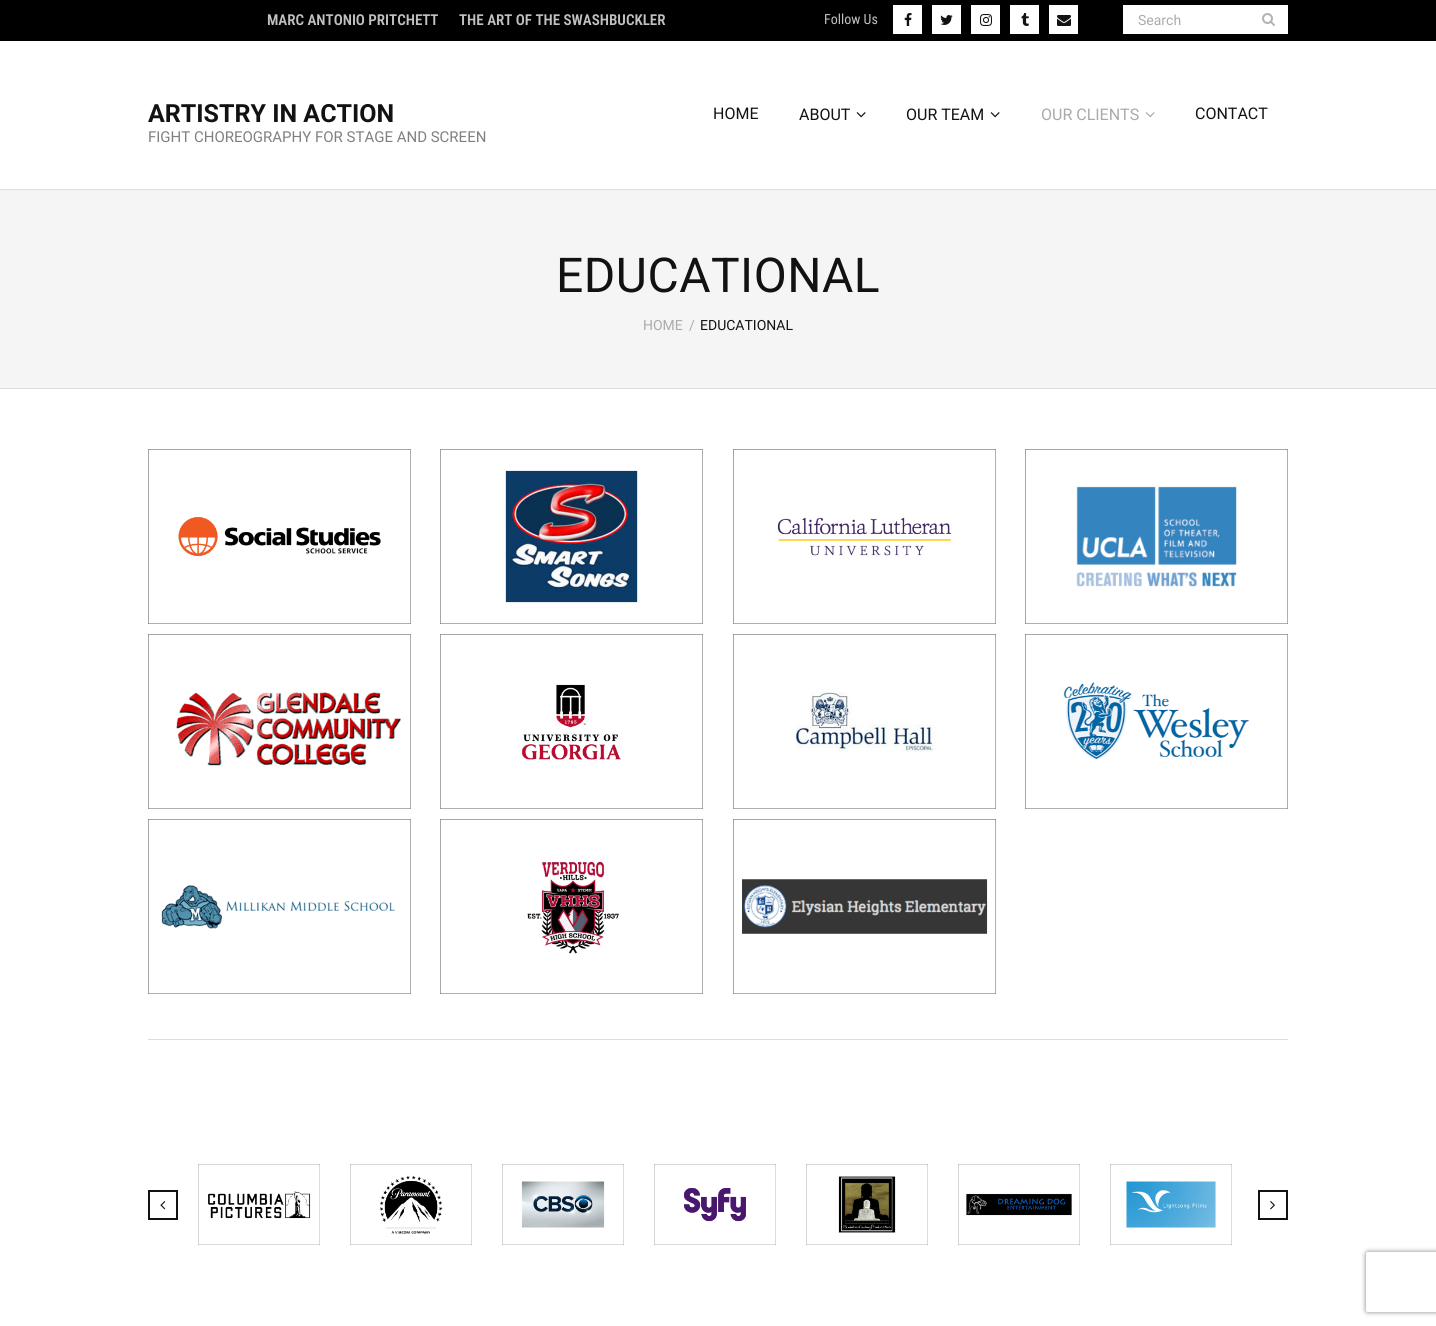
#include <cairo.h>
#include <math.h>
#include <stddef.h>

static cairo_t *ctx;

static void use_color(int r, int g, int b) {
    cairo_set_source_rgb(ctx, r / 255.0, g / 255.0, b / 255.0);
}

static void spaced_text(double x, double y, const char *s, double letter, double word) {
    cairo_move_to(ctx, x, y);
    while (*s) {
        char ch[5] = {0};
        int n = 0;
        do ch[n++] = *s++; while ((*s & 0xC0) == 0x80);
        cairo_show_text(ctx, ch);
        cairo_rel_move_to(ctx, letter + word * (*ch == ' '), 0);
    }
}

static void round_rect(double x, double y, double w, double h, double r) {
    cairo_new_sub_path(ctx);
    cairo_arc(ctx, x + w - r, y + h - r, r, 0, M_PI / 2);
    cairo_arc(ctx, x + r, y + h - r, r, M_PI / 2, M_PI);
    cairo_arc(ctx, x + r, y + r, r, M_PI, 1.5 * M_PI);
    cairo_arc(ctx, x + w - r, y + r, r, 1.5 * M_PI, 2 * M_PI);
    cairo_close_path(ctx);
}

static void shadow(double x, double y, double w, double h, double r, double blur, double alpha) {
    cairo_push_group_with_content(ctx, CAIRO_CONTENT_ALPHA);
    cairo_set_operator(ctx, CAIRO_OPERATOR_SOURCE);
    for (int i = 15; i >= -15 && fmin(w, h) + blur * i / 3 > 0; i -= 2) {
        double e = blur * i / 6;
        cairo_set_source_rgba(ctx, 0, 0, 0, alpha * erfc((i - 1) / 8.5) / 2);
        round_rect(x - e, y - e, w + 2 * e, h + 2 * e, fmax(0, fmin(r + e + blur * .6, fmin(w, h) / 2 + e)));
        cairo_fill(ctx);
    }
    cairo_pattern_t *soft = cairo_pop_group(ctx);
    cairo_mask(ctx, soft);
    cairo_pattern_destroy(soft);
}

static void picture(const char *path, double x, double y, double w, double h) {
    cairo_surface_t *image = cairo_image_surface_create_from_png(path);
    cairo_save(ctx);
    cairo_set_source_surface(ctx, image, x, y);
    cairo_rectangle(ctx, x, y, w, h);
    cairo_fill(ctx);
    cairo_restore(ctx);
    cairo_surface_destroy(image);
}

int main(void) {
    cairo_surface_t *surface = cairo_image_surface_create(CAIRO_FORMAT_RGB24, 1436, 1326);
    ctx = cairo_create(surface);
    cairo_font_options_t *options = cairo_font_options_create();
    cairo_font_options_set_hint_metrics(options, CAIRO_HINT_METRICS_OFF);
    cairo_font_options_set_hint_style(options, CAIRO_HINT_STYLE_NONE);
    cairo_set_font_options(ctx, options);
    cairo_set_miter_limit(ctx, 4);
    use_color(255, 255, 255);
    cairo_paint(ctx);
    use_color(0, 0, 0);
    cairo_rectangle(ctx, 0, 0, 1436, 41);
    cairo_fill(ctx);
    cairo_select_font_face(ctx, "Roboto Condensed SemiBold", CAIRO_FONT_SLANT_NORMAL, CAIRO_FONT_WEIGHT_NORMAL);
    cairo_set_font_size(ctx, 15);
    use_color(193, 193, 193);
    cairo_move_to(ctx, 267, 25);
    cairo_show_text(ctx, "MARC ANTONIO PRITCHETT");
    cairo_move_to(ctx, 459, 25);
    cairo_show_text(ctx, "THE ART OF THE SWASHBUCKLER");
    cairo_select_font_face(ctx, "Roboto Condensed", CAIRO_FONT_SLANT_NORMAL, CAIRO_FONT_WEIGHT_NORMAL);
    cairo_set_font_size(ctx, 14);
    cairo_move_to(ctx, 824, 24);
    cairo_show_text(ctx, "Follow Us");
    use_color(255, 255, 255);
    cairo_rectangle(ctx, 893, 5, 29, 29);
    cairo_fill(ctx);
    picture("img1.png", 904, 13, 8, 13);
    cairo_rectangle(ctx, 932, 5, 29, 29);
    cairo_fill(ctx);
    picture("img2.png", 940, 15, 13, 10);
    cairo_rectangle(ctx, 971, 5, 29, 29);
    cairo_fill(ctx);
    picture("img3.png", 980, 14, 12, 12);
    cairo_rectangle(ctx, 1010, 5, 29, 29);
    cairo_fill(ctx);
    picture("img4.png", 1021, 13, 8, 13);
    cairo_rectangle(ctx, 1049, 5, 29, 29);
    cairo_fill(ctx);
    picture("img5.png", 1057, 15, 14, 11);
    cairo_rectangle(ctx, 1123, 5, 165, 29);
    cairo_fill(ctx);
    cairo_select_font_face(ctx, "Roboto", CAIRO_FONT_SLANT_NORMAL, CAIRO_FONT_WEIGHT_NORMAL);
    use_color(170, 170, 170);
    cairo_move_to(ctx, 1138, 25);
    cairo_show_text(ctx, "Search");
    picture("img6.png", 1262, 13, 13, 13);
    use_color(221, 221, 221);
    cairo_rectangle(ctx, 0, 189, 1436, 1);
    cairo_fill(ctx);
    cairo_select_font_face(ctx, "Roboto", CAIRO_FONT_SLANT_NORMAL, CAIRO_FONT_WEIGHT_BOLD);
    cairo_set_font_size(ctx, 25);
    use_color(18, 18, 18);
    cairo_move_to(ctx, 148, 122);
    cairo_show_text(ctx, "ARTISTRY IN ACTION");
    cairo_select_font_face(ctx, "Roboto", CAIRO_FONT_SLANT_NORMAL, CAIRO_FONT_WEIGHT_NORMAL);
    cairo_set_font_size(ctx, 15);
    use_color(128, 128, 128);
    cairo_move_to(ctx, 148, 142);
    cairo_show_text(ctx, "FIGHT CHOREOGRAPHY FOR STAGE AND SCREEN");
    cairo_set_font_size(ctx, 16);
    use_color(18, 18, 18);
    cairo_move_to(ctx, 713, 119);
    cairo_show_text(ctx, "HOME");
    cairo_move_to(ctx, 799, 120);
    cairo_show_text(ctx, "ABOUT");
    picture("img7.png", 856, 112, 10, 6);
    cairo_move_to(ctx, 906, 120);
    cairo_show_text(ctx, "OUR TEAM");
    picture("img7.png", 990, 112, 10, 6);
    use_color(170, 170, 170);
    cairo_move_to(ctx, 1041, 120);
    cairo_show_text(ctx, "OUR CLIENTS");
    picture("img8.png", 1145, 112, 10, 6);
    use_color(18, 18, 18);
    cairo_move_to(ctx, 1195, 119);
    cairo_show_text(ctx, "CONTACT");
    use_color(245, 245, 245);
    cairo_rectangle(ctx, 0, 190, 1436, 198);
    cairo_fill(ctx);
    use_color(221, 221, 221);
    cairo_rectangle(ctx, 0, 388, 1436, 1);
    cairo_fill(ctx);
    cairo_set_font_size(ctx, 48);
    use_color(18, 18, 18);
    spaced_text(556, 292, "EDUCATIONAL", 0.5, 0);
    cairo_set_font_size(ctx, 14);
    use_color(170, 170, 170);
    cairo_move_to(ctx, 643, 330);
    cairo_show_text(ctx, "HOME");
    cairo_move_to(ctx, 689, 330);
    cairo_show_text(ctx, "/");
    use_color(18, 18, 18);
    cairo_move_to(ctx, 700, 330);
    cairo_show_text(ctx, "EDUCATIONAL");
    picture("img9.png", 148, 449, 263, 175);
    picture("img10.png", 148, 634, 263, 175);
    picture("img11.png", 148, 819, 263, 175);
    picture("img12.png", 440, 449, 263, 175);
    picture("img13.png", 440, 634, 263, 175);
    picture("img14.png", 440, 819, 263, 175);
    picture("img15.png", 733, 449, 263, 175);
    picture("img16.png", 733, 634, 263, 175);
    picture("img17.png", 733, 819, 263, 175);
    picture("img18.png", 1025, 449, 263, 175);
    picture("img19.png", 1025, 634, 263, 175);
    use_color(221, 221, 221);
    cairo_rectangle(ctx, 148, 1039, 1140, 1);
    cairo_fill(ctx);
    picture("img20.png", 198, 1164, 122, 81);
    picture("img21.png", 350, 1164, 122, 81);
    picture("img22.png", 502, 1164, 122, 81);
    picture("img23.png", 654, 1164, 122, 81);
    picture("img24.png", 806, 1164, 122, 81);
    picture("img25.png", 958, 1164, 122, 81);
    picture("img26.png", 1110, 1164, 122, 81);
    cairo_rectangle(ctx, 149, 1191, 28, 28);
    use_color(18, 18, 18);
    cairo_stroke(ctx);
    picture("img27.png", 160, 1201, 6, 9);
    cairo_rectangle(ctx, 1259, 1191, 28, 28);
    cairo_stroke(ctx);
    picture("img28.png", 1270, 1201, 5, 9);
    cairo_save(ctx);
    cairo_set_fill_rule(ctx, CAIRO_FILL_RULE_EVEN_ODD);
    cairo_new_path(ctx);
    cairo_move_to(ctx, 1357, 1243);
    cairo_line_to(ctx, 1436, 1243);
    cairo_line_to(ctx, 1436, 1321);
    cairo_line_to(ctx, 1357, 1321);
    cairo_close_path(ctx);
    cairo_move_to(ctx, 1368, 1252);
    cairo_line_to(ctx, 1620, 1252);
    cairo_curve_to(ctx, 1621, 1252, 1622, 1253, 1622, 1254);
    cairo_line_to(ctx, 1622, 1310);
    cairo_curve_to(ctx, 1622, 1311, 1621, 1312, 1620, 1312);
    cairo_line_to(ctx, 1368, 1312);
    cairo_curve_to(ctx, 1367, 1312, 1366, 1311, 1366, 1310);
    cairo_line_to(ctx, 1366, 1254);
    cairo_curve_to(ctx, 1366, 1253, 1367, 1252, 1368, 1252);
    cairo_close_path(ctx);
    cairo_clip(ctx);
    use_color(128, 128, 128);
    shadow(1366, 1252, 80, 60, 2, 2.5, 1);
    cairo_restore(ctx);
    cairo_surface_write_to_png(surface, "result.png");
    cairo_font_options_destroy(options);
    cairo_destroy(ctx);
    cairo_surface_destroy(surface);
    return 0;
}
